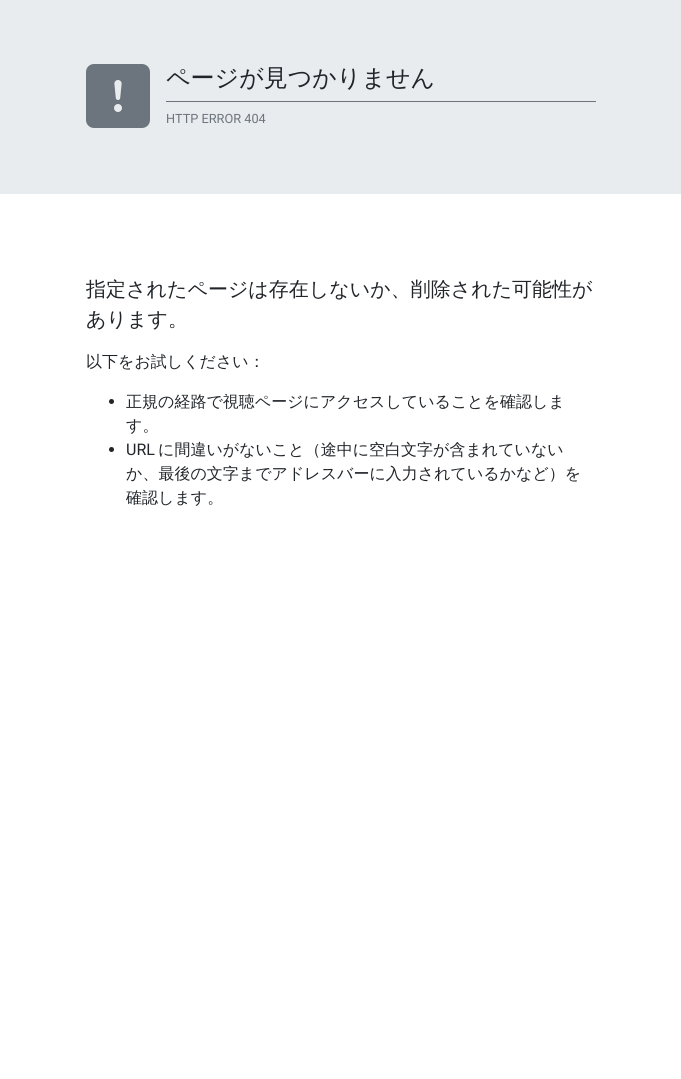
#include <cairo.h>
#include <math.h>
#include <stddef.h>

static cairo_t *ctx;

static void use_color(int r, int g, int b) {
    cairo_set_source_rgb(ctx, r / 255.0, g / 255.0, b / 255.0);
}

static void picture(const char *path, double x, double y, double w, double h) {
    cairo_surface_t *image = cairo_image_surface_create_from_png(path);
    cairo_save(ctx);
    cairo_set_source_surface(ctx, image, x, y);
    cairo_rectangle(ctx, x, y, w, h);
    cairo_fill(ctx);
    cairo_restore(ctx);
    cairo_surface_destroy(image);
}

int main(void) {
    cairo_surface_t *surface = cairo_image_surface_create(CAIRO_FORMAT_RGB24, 681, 1079);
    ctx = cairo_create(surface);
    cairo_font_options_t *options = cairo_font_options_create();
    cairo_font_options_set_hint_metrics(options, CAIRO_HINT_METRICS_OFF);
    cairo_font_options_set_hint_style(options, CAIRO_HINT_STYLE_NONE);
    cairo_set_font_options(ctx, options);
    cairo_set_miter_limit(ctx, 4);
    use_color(255, 255, 255);
    cairo_paint(ctx);
    use_color(233, 236, 239);
    cairo_rectangle(ctx, 0, 0, 681, 194);
    cairo_fill(ctx);
    picture("img1.png", 86, 64, 64, 64);
    cairo_select_font_face(ctx, "WenQuanYi Zen Hei Medium", CAIRO_FONT_SLANT_NORMAL, CAIRO_FONT_WEIGHT_NORMAL);
    cairo_set_font_size(ctx, 24);
    use_color(33, 37, 41);
    cairo_move_to(ctx, 166, 86);
    cairo_show_text(ctx, "ページが見つかりません");
    use_color(108, 117, 125);
    cairo_rectangle(ctx, 166, 101, 430, 1);
    cairo_fill(ctx);
    cairo_select_font_face(ctx, "Roboto", CAIRO_FONT_SLANT_NORMAL, CAIRO_FONT_WEIGHT_NORMAL);
    cairo_set_font_size(ctx, 12.75);
    cairo_move_to(ctx, 166, 123);
    cairo_show_text(ctx, "HTTP ERROR 404");
    cairo_select_font_face(ctx, "WenQuanYi Zen Hei Medium", CAIRO_FONT_SLANT_NORMAL, CAIRO_FONT_WEIGHT_NORMAL);
    cairo_set_font_size(ctx, 20);
    use_color(33, 37, 41);
    cairo_move_to(ctx, 86, 296);
    cairo_show_text(ctx, "指定されたページは存在しないか、削除された可能性が");
    cairo_move_to(ctx, 86, 326);
    cairo_show_text(ctx, "あります。");
    cairo_set_font_size(ctx, 16);
    cairo_move_to(ctx, 86, 367);
    cairo_show_text(ctx, "以下をお試しください：");
    cairo_new_path(ctx);
    cairo_arc(ctx, 111.5, 401.5, 2.5, 0, 2 * M_PI);
    cairo_fill(ctx);
    cairo_move_to(ctx, 126, 407);
    cairo_show_text(ctx, "正規の経路で視聴ページにアクセスしていることを確認しま");
    cairo_move_to(ctx, 126, 431);
    cairo_show_text(ctx, "す。");
    cairo_new_path(ctx);
    cairo_arc(ctx, 111.5, 449.5, 2.5, 0, 2 * M_PI);
    cairo_fill(ctx);
    cairo_select_font_face(ctx, "Roboto", CAIRO_FONT_SLANT_NORMAL, CAIRO_FONT_WEIGHT_NORMAL);
    cairo_move_to(ctx, 126, 455);
    cairo_show_text(ctx, "URL");
    cairo_select_font_face(ctx, "WenQuanYi Zen Hei Medium", CAIRO_FONT_SLANT_NORMAL, CAIRO_FONT_WEIGHT_NORMAL);
    cairo_move_to(ctx, 158, 455);
    cairo_show_text(ctx, "に間違いがないこと（途中に空白文字が含まれていない");
    cairo_move_to(ctx, 126, 479);
    cairo_show_text(ctx, "か、最後の文字までアドレスバーに入力されているかなど）を");
    cairo_move_to(ctx, 126, 503);
    cairo_show_text(ctx, "確認します。");
    cairo_surface_write_to_png(surface, "result.png");
    cairo_font_options_destroy(options);
    cairo_destroy(ctx);
    cairo_surface_destroy(surface);
    return 0;
}
